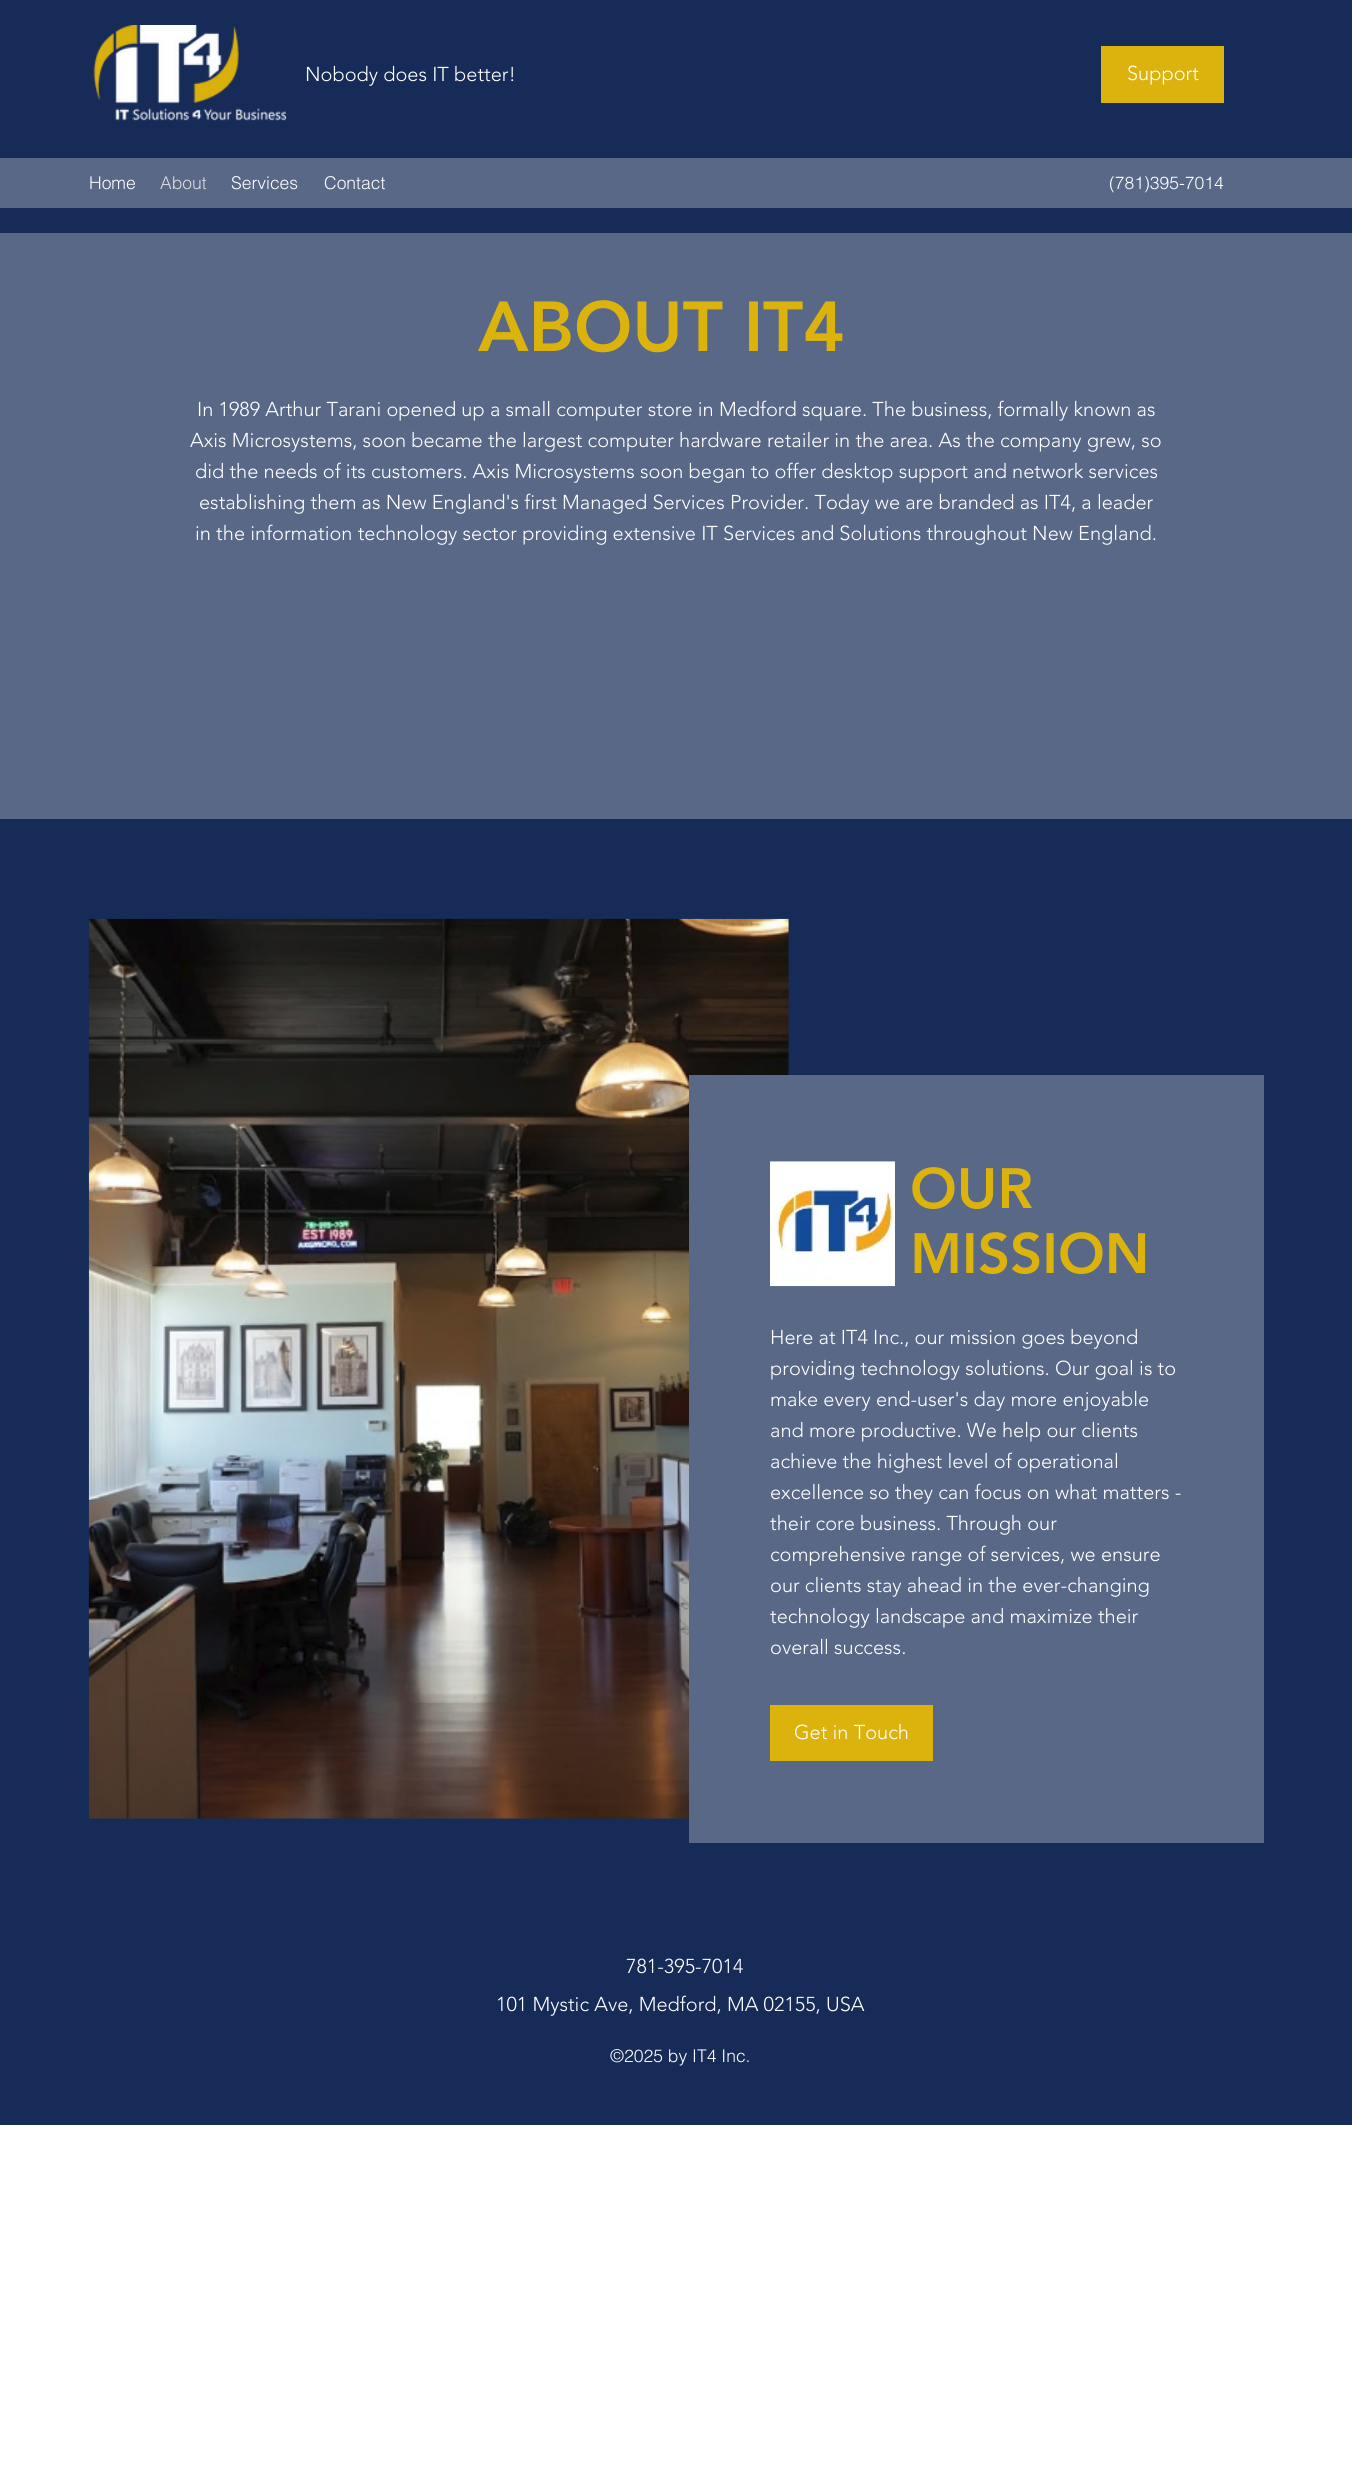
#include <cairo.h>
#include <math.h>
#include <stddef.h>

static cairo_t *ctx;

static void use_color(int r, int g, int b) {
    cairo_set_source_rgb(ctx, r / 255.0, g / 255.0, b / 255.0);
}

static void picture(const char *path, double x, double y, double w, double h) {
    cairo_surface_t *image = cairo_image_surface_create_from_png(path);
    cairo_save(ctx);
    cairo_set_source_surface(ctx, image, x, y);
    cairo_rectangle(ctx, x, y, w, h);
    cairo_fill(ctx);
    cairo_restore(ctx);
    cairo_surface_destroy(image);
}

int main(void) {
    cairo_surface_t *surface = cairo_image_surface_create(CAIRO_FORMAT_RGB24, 1352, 2472);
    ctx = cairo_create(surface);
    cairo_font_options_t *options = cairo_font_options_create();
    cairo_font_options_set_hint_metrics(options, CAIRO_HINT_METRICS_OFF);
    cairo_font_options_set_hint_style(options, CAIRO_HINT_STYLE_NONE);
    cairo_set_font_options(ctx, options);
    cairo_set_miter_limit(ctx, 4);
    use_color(255, 255, 255);
    cairo_paint(ctx);
    use_color(23, 43, 88);
    cairo_rectangle(ctx, 0, 0, 1352, 233);
    cairo_fill(ctx);
    picture("img1.png", 93, 25, 194, 96);
    cairo_select_font_face(ctx, "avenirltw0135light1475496 Light", CAIRO_FONT_SLANT_NORMAL, CAIRO_FONT_WEIGHT_NORMAL);
    cairo_set_font_size(ctx, 20);
    use_color(255, 255, 255);
    cairo_move_to(ctx, 305, 81);
    cairo_show_text(ctx, "Nobody does IT better!");
    use_color(220, 179, 13);
    cairo_rectangle(ctx, 1101, 46, 123, 57);
    cairo_fill(ctx);
    use_color(255, 255, 255);
    cairo_move_to(ctx, 1127, 80);
    cairo_show_text(ctx, "Support");
    use_color(89, 104, 135);
    cairo_rectangle(ctx, 0, 158, 1352, 50);
    cairo_fill(ctx);
    cairo_select_font_face(ctx, "helvetica Light", CAIRO_FONT_SLANT_NORMAL, CAIRO_FONT_WEIGHT_NORMAL);
    cairo_set_font_size(ctx, 17.5);
    use_color(255, 255, 255);
    cairo_move_to(ctx, 89, 189);
    cairo_show_text(ctx, "Home");
    use_color(220, 220, 220);
    cairo_move_to(ctx, 160, 189);
    cairo_show_text(ctx, "About");
    use_color(255, 255, 255);
    cairo_move_to(ctx, 231, 189);
    cairo_show_text(ctx, "Services");
    cairo_move_to(ctx, 324, 189);
    cairo_show_text(ctx, "Contact");
    cairo_move_to(ctx, 1109, 189);
    cairo_show_text(ctx, "(781)395-7014");
    use_color(89, 104, 135);
    cairo_rectangle(ctx, 0, 233, 1352, 586);
    cairo_fill(ctx);
    cairo_select_font_face(ctx, "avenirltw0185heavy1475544 Black", CAIRO_FONT_SLANT_NORMAL, CAIRO_FONT_WEIGHT_NORMAL);
    cairo_set_font_size(ctx, 70);
    use_color(220, 179, 13);
    cairo_move_to(ctx, 478, 351);
    cairo_show_text(ctx, "ABOUT IT4");
    cairo_select_font_face(ctx, "avenirltw0135light1475496 Light", CAIRO_FONT_SLANT_NORMAL, CAIRO_FONT_WEIGHT_NORMAL);
    cairo_set_font_size(ctx, 20);
    use_color(255, 255, 255);
    cairo_move_to(ctx, 197, 416);
    cairo_show_text(ctx, "In 1989 Arthur Tarani opened up a small computer store in Medford square. The business, formally known as");
    cairo_move_to(ctx, 190, 447);
    cairo_show_text(ctx, "Axis Microsystems, soon became the largest computer hardware retailer in the area. As the company grew, so");
    cairo_move_to(ctx, 195, 478);
    cairo_show_text(ctx, "did the needs of its customers. Axis Microsystems soon began to offer desktop support and network services");
    cairo_move_to(ctx, 199, 509);
    cairo_show_text(ctx, "establishing them as New England's first Managed Services Provider. Today we are branded as IT4, a leader");
    cairo_move_to(ctx, 195, 540);
    cairo_show_text(ctx, "in the information technology sector providing extensive IT Services and Solutions throughout New England.");
    use_color(23, 43, 88);
    cairo_rectangle(ctx, 0, 819, 1352, 1306);
    cairo_fill(ctx);
    picture("img2.png", 88, 918, 701, 901);
    use_color(89, 104, 135);
    cairo_rectangle(ctx, 689, 1075, 575, 768);
    cairo_fill(ctx);
    picture("img3.png", 770, 1161, 125, 126);
    cairo_select_font_face(ctx, "avenirltw0185heavy1475544 Black", CAIRO_FONT_SLANT_NORMAL, CAIRO_FONT_WEIGHT_NORMAL);
    cairo_set_font_size(ctx, 56.25);
    use_color(220, 179, 13);
    cairo_move_to(ctx, 910, 1208);
    cairo_show_text(ctx, "OUR");
    cairo_move_to(ctx, 910, 1273);
    cairo_show_text(ctx, "MISSION");
    cairo_select_font_face(ctx, "avenirltw0135light1475496 Light", CAIRO_FONT_SLANT_NORMAL, CAIRO_FONT_WEIGHT_NORMAL);
    cairo_set_font_size(ctx, 20);
    use_color(255, 255, 255);
    cairo_move_to(ctx, 770, 1344);
    cairo_show_text(ctx, "Here at IT4 Inc., our mission goes beyond");
    cairo_move_to(ctx, 770, 1375);
    cairo_show_text(ctx, "providing technology solutions. Our goal is to");
    cairo_move_to(ctx, 770, 1406);
    cairo_show_text(ctx, "make every end-user's day more enjoyable");
    cairo_move_to(ctx, 770, 1437);
    cairo_show_text(ctx, "and more productive. We help our clients");
    cairo_move_to(ctx, 770, 1468);
    cairo_show_text(ctx, "achieve the highest level of operational");
    cairo_move_to(ctx, 770, 1499);
    cairo_show_text(ctx, "excellence so they can focus on what matters -");
    cairo_move_to(ctx, 770, 1530);
    cairo_show_text(ctx, "their core business. Through our");
    cairo_move_to(ctx, 770, 1561);
    cairo_show_text(ctx, "comprehensive range of services, we ensure");
    cairo_move_to(ctx, 770, 1592);
    cairo_show_text(ctx, "our clients stay ahead in the ever-changing");
    cairo_move_to(ctx, 770, 1623);
    cairo_show_text(ctx, "technology landscape and maximize their");
    cairo_move_to(ctx, 770, 1654);
    cairo_show_text(ctx, "overall success.");
    use_color(220, 179, 13);
    cairo_rectangle(ctx, 770, 1705, 163, 56);
    cairo_fill(ctx);
    use_color(255, 255, 255);
    cairo_move_to(ctx, 794, 1739);
    cairo_show_text(ctx, "Get in Touch");
    cairo_move_to(ctx, 626, 1973);
    cairo_show_text(ctx, "781-395-7014");
    cairo_move_to(ctx, 496, 2011);
    cairo_show_text(ctx, "101 Mystic Ave, Medford, MA 02155, USA");
    cairo_select_font_face(ctx, "helvetica Light", CAIRO_FONT_SLANT_NORMAL, CAIRO_FONT_WEIGHT_NORMAL);
    cairo_set_font_size(ctx, 17.5);
    cairo_move_to(ctx, 610, 2062);
    cairo_show_text(ctx, "©2025 by IT4 Inc.");
    cairo_surface_write_to_png(surface, "result.png");
    cairo_font_options_destroy(options);
    cairo_destroy(ctx);
    cairo_surface_destroy(surface);
    return 0;
}
